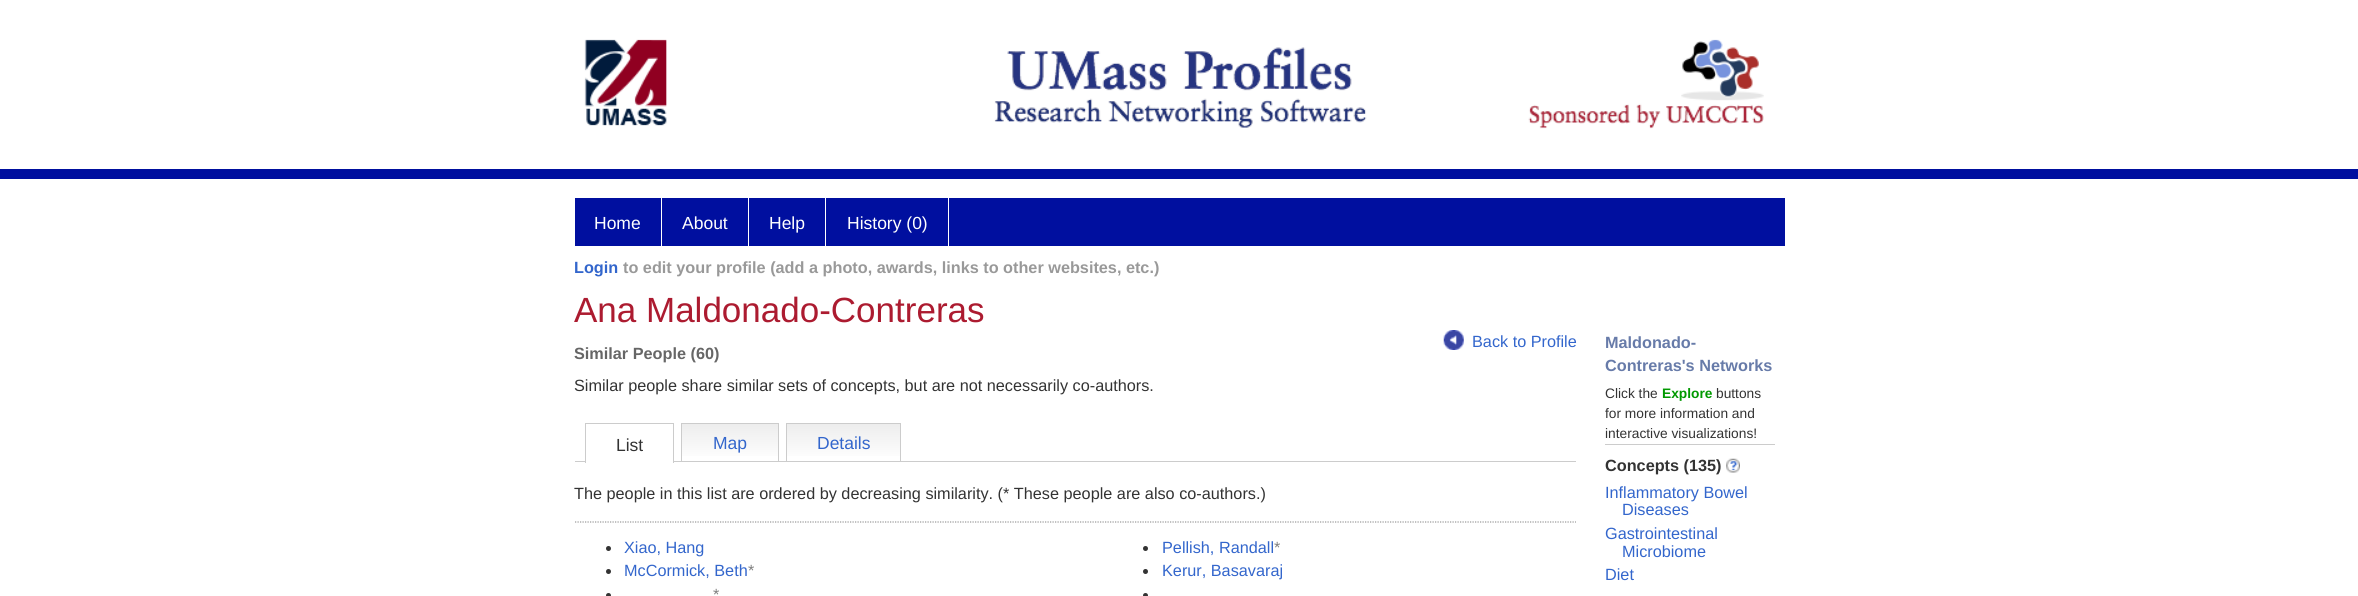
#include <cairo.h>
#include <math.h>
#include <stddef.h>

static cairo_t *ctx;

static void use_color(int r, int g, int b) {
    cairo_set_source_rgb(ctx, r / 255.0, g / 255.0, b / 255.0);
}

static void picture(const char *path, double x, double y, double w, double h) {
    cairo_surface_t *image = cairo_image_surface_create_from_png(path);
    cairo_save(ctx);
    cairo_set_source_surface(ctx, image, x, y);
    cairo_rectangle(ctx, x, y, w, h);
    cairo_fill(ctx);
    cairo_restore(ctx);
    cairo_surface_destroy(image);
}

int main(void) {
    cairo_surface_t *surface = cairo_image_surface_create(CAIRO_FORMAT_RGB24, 2358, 596);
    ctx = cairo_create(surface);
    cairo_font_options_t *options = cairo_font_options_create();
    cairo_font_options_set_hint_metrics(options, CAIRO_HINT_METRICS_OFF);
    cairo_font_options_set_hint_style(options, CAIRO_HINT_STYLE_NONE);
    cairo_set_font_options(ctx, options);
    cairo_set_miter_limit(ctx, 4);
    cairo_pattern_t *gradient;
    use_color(255, 255, 255);
    cairo_paint(ctx);
    use_color(0, 15, 159);
    cairo_rectangle(ctx, 0, 169, 2358, 10);
    cairo_fill(ctx);
    picture("img1.png", 584, 39, 1180, 90);
    cairo_rectangle(ctx, 575, 198, 1210, 48);
    cairo_fill(ctx);
    use_color(255, 255, 255);
    cairo_rectangle(ctx, 661, 198, 1, 48);
    cairo_fill(ctx);
    cairo_select_font_face(ctx, "Liberation Sans", CAIRO_FONT_SLANT_NORMAL, CAIRO_FONT_WEIGHT_NORMAL);
    cairo_set_font_size(ctx, 17.5);
    cairo_move_to(ctx, 594, 229);
    cairo_show_text(ctx, "Home");
    cairo_rectangle(ctx, 748, 198, 1, 48);
    cairo_fill(ctx);
    cairo_move_to(ctx, 682, 229);
    cairo_show_text(ctx, "About");
    cairo_rectangle(ctx, 825, 198, 1, 48);
    cairo_fill(ctx);
    cairo_move_to(ctx, 769, 229);
    cairo_show_text(ctx, "Help");
    cairo_rectangle(ctx, 948, 198, 1, 48);
    cairo_fill(ctx);
    cairo_move_to(ctx, 847, 229);
    cairo_show_text(ctx, "History (0)");
    cairo_select_font_face(ctx, "Liberation Sans", CAIRO_FONT_SLANT_NORMAL, CAIRO_FONT_WEIGHT_BOLD);
    cairo_set_font_size(ctx, 16.25);
    use_color(51, 102, 204);
    cairo_move_to(ctx, 574, 273);
    cairo_show_text(ctx, "Login");
    use_color(153, 153, 153);
    cairo_move_to(ctx, 623, 273);
    cairo_show_text(ctx, "to edit your profile (add a photo, awards, links to other websites, etc.)");
    cairo_select_font_face(ctx, "Liberation Sans", CAIRO_FONT_SLANT_NORMAL, CAIRO_FONT_WEIGHT_NORMAL);
    cairo_set_font_size(ctx, 35);
    use_color(172, 27, 48);
    cairo_move_to(ctx, 574, 322);
    cairo_show_text(ctx, "Ana Maldonado-Contreras");
    picture("img2.png", 1443, 330, 21, 20);
    cairo_set_font_size(ctx, 16.25);
    use_color(51, 102, 204);
    cairo_move_to(ctx, 1472, 347);
    cairo_show_text(ctx, "Back to Profile");
    cairo_select_font_face(ctx, "Liberation Sans", CAIRO_FONT_SLANT_NORMAL, CAIRO_FONT_WEIGHT_BOLD);
    use_color(102, 102, 102);
    cairo_move_to(ctx, 574, 359);
    cairo_show_text(ctx, "Similar People (60)");
    cairo_select_font_face(ctx, "Liberation Sans", CAIRO_FONT_SLANT_NORMAL, CAIRO_FONT_WEIGHT_NORMAL);
    use_color(51, 51, 51);
    cairo_move_to(ctx, 574, 391);
    cairo_show_text(ctx, "Similar people share similar sets of concepts, but are not necessarily co-authors.");
    use_color(204, 204, 204);
    cairo_rectangle(ctx, 575, 461, 1001, 1);
    cairo_fill(ctx);
    use_color(255, 255, 255);
    cairo_rectangle(ctx, 586, 461, 87, 1);
    cairo_fill(ctx);
    use_color(204, 204, 204);
    cairo_rectangle(ctx, 585, 423, 89, 1);
    cairo_fill(ctx);
    cairo_rectangle(ctx, 673, 423, 1, 40);
    cairo_fill(ctx);
    cairo_rectangle(ctx, 585, 423, 1, 40);
    cairo_fill(ctx);
    cairo_set_font_size(ctx, 17.5);
    use_color(51, 51, 51);
    cairo_move_to(ctx, 616, 451);
    cairo_show_text(ctx, "List");
    gradient = cairo_pattern_create_linear(730, 424, 730, 461);
    cairo_pattern_add_color_stop_rgba(gradient, 0, 0.929, 0.929, 0.929, 1);
    cairo_pattern_add_color_stop_rgba(gradient, 1, 1, 1, 1, 1);
    cairo_set_source(ctx, gradient);
    cairo_pattern_destroy(gradient);
    cairo_rectangle(ctx, 682, 424, 96, 32);
    cairo_fill(ctx);
    use_color(204, 204, 204);
    cairo_rectangle(ctx, 681, 423, 98, 1);
    cairo_fill(ctx);
    cairo_rectangle(ctx, 778, 423, 1, 38);
    cairo_fill(ctx);
    cairo_rectangle(ctx, 681, 423, 1, 38);
    cairo_fill(ctx);
    use_color(51, 102, 204);
    cairo_move_to(ctx, 713, 449);
    cairo_show_text(ctx, "Map");
    gradient = cairo_pattern_create_linear(844, 424, 844, 461);
    cairo_pattern_add_color_stop_rgba(gradient, 0, 0.929, 0.929, 0.929, 1);
    cairo_pattern_add_color_stop_rgba(gradient, 1, 1, 1, 1, 1);
    cairo_set_source(ctx, gradient);
    cairo_pattern_destroy(gradient);
    cairo_rectangle(ctx, 787, 424, 113, 32);
    cairo_fill(ctx);
    use_color(204, 204, 204);
    cairo_rectangle(ctx, 786, 423, 115, 1);
    cairo_fill(ctx);
    cairo_rectangle(ctx, 900, 423, 1, 38);
    cairo_fill(ctx);
    cairo_rectangle(ctx, 786, 423, 1, 38);
    cairo_fill(ctx);
    use_color(51, 102, 204);
    cairo_move_to(ctx, 817, 449);
    cairo_show_text(ctx, "Details");
    cairo_new_path(ctx);
    cairo_move_to(ctx, 575, 522);
    cairo_line_to(ctx, 1576, 522);
    use_color(153, 153, 153);
    cairo_set_line_width(ctx, 1.2);
    cairo_set_dash(ctx, (double[]){1.25, 1.25}, 2, 0);
    cairo_stroke(ctx);
    cairo_set_font_size(ctx, 16.25);
    use_color(51, 51, 51);
    cairo_move_to(ctx, 574, 499);
    cairo_show_text(ctx, "The people in this list are ordered by decreasing similarity. (* These people are also co-authors.)");
    cairo_new_path(ctx);
    cairo_arc(ctx, 608.5, 548.5, 2.5, 0, 2 * M_PI);
    cairo_fill(ctx);
    use_color(51, 102, 204);
    cairo_move_to(ctx, 624, 553);
    cairo_show_text(ctx, "Xiao, Hang");
    cairo_move_to(ctx, 624, 576);
    cairo_show_text(ctx, "McCormick, Beth");
    use_color(128, 128, 128);
    cairo_move_to(ctx, 748, 576);
    cairo_show_text(ctx, "*");
    use_color(51, 51, 51);
    cairo_new_path(ctx);
    cairo_arc(ctx, 608.5, 571.5, 2.5, 0, 2 * M_PI);
    cairo_fill(ctx);
    use_color(128, 128, 128);
    cairo_move_to(ctx, 713, 600);
    cairo_show_text(ctx, "*");
    use_color(51, 51, 51);
    cairo_new_path(ctx);
    cairo_arc(ctx, 608.5, 595.5, 2.5, 0, 2 * M_PI);
    cairo_fill(ctx);
    use_color(51, 102, 204);
    cairo_move_to(ctx, 1162, 553);
    cairo_show_text(ctx, "Pellish, Randall");
    use_color(128, 128, 128);
    cairo_move_to(ctx, 1274, 553);
    cairo_show_text(ctx, "*");
    use_color(51, 51, 51);
    cairo_new_path(ctx);
    cairo_arc(ctx, 1145.5, 548.5, 2.5, 0, 2 * M_PI);
    cairo_fill(ctx);
    cairo_arc(ctx, 1145.5, 571.5, 2.5, 0, 2 * M_PI);
    cairo_fill(ctx);
    use_color(51, 102, 204);
    cairo_move_to(ctx, 1162, 576);
    cairo_show_text(ctx, "Kerur, Basavaraj");
    use_color(51, 51, 51);
    cairo_new_path(ctx);
    cairo_arc(ctx, 1145.5, 595.5, 2.5, 0, 2 * M_PI);
    cairo_fill(ctx);
    cairo_select_font_face(ctx, "Liberation Sans", CAIRO_FONT_SLANT_NORMAL, CAIRO_FONT_WEIGHT_BOLD);
    use_color(103, 123, 169);
    cairo_move_to(ctx, 1605, 348);
    cairo_show_text(ctx, "Maldonado-");
    cairo_move_to(ctx, 1605, 371);
    cairo_show_text(ctx, "Contreras's Networks");
    cairo_select_font_face(ctx, "Liberation Sans", CAIRO_FONT_SLANT_NORMAL, CAIRO_FONT_WEIGHT_NORMAL);
    cairo_set_font_size(ctx, 13.75);
    use_color(51, 51, 51);
    cairo_move_to(ctx, 1605, 398);
    cairo_show_text(ctx, "Click the");
    cairo_select_font_face(ctx, "Liberation Sans", CAIRO_FONT_SLANT_NORMAL, CAIRO_FONT_WEIGHT_BOLD);
    use_color(0, 153, 0);
    cairo_move_to(ctx, 1662, 398);
    cairo_show_text(ctx, "Explore");
    cairo_select_font_face(ctx, "Liberation Sans", CAIRO_FONT_SLANT_NORMAL, CAIRO_FONT_WEIGHT_NORMAL);
    use_color(51, 51, 51);
    cairo_move_to(ctx, 1716, 398);
    cairo_show_text(ctx, "buttons");
    cairo_move_to(ctx, 1605, 418);
    cairo_show_text(ctx, "for more information and");
    cairo_move_to(ctx, 1605, 438);
    cairo_show_text(ctx, "interactive visualizations!");
    use_color(204, 204, 204);
    cairo_rectangle(ctx, 1605, 444, 170, 1);
    cairo_fill(ctx);
    cairo_select_font_face(ctx, "Liberation Sans", CAIRO_FONT_SLANT_NORMAL, CAIRO_FONT_WEIGHT_BOLD);
    cairo_set_font_size(ctx, 16.25);
    use_color(51, 51, 51);
    cairo_move_to(ctx, 1605, 471);
    cairo_show_text(ctx, "Concepts (135)");
    picture("img3.png", 1726, 458, 14, 15);
    cairo_select_font_face(ctx, "Liberation Sans", CAIRO_FONT_SLANT_NORMAL, CAIRO_FONT_WEIGHT_NORMAL);
    use_color(51, 102, 204);
    cairo_move_to(ctx, 1605, 498);
    cairo_show_text(ctx, "Inflammatory Bowel");
    cairo_move_to(ctx, 1622, 515);
    cairo_show_text(ctx, "Diseases");
    cairo_move_to(ctx, 1605, 539);
    cairo_show_text(ctx, "Gastrointestinal");
    cairo_move_to(ctx, 1622, 557);
    cairo_show_text(ctx, "Microbiome");
    cairo_move_to(ctx, 1605, 580);
    cairo_show_text(ctx, "Diet");
    cairo_surface_write_to_png(surface, "result.png");
    cairo_font_options_destroy(options);
    cairo_destroy(ctx);
    cairo_surface_destroy(surface);
    return 0;
}
